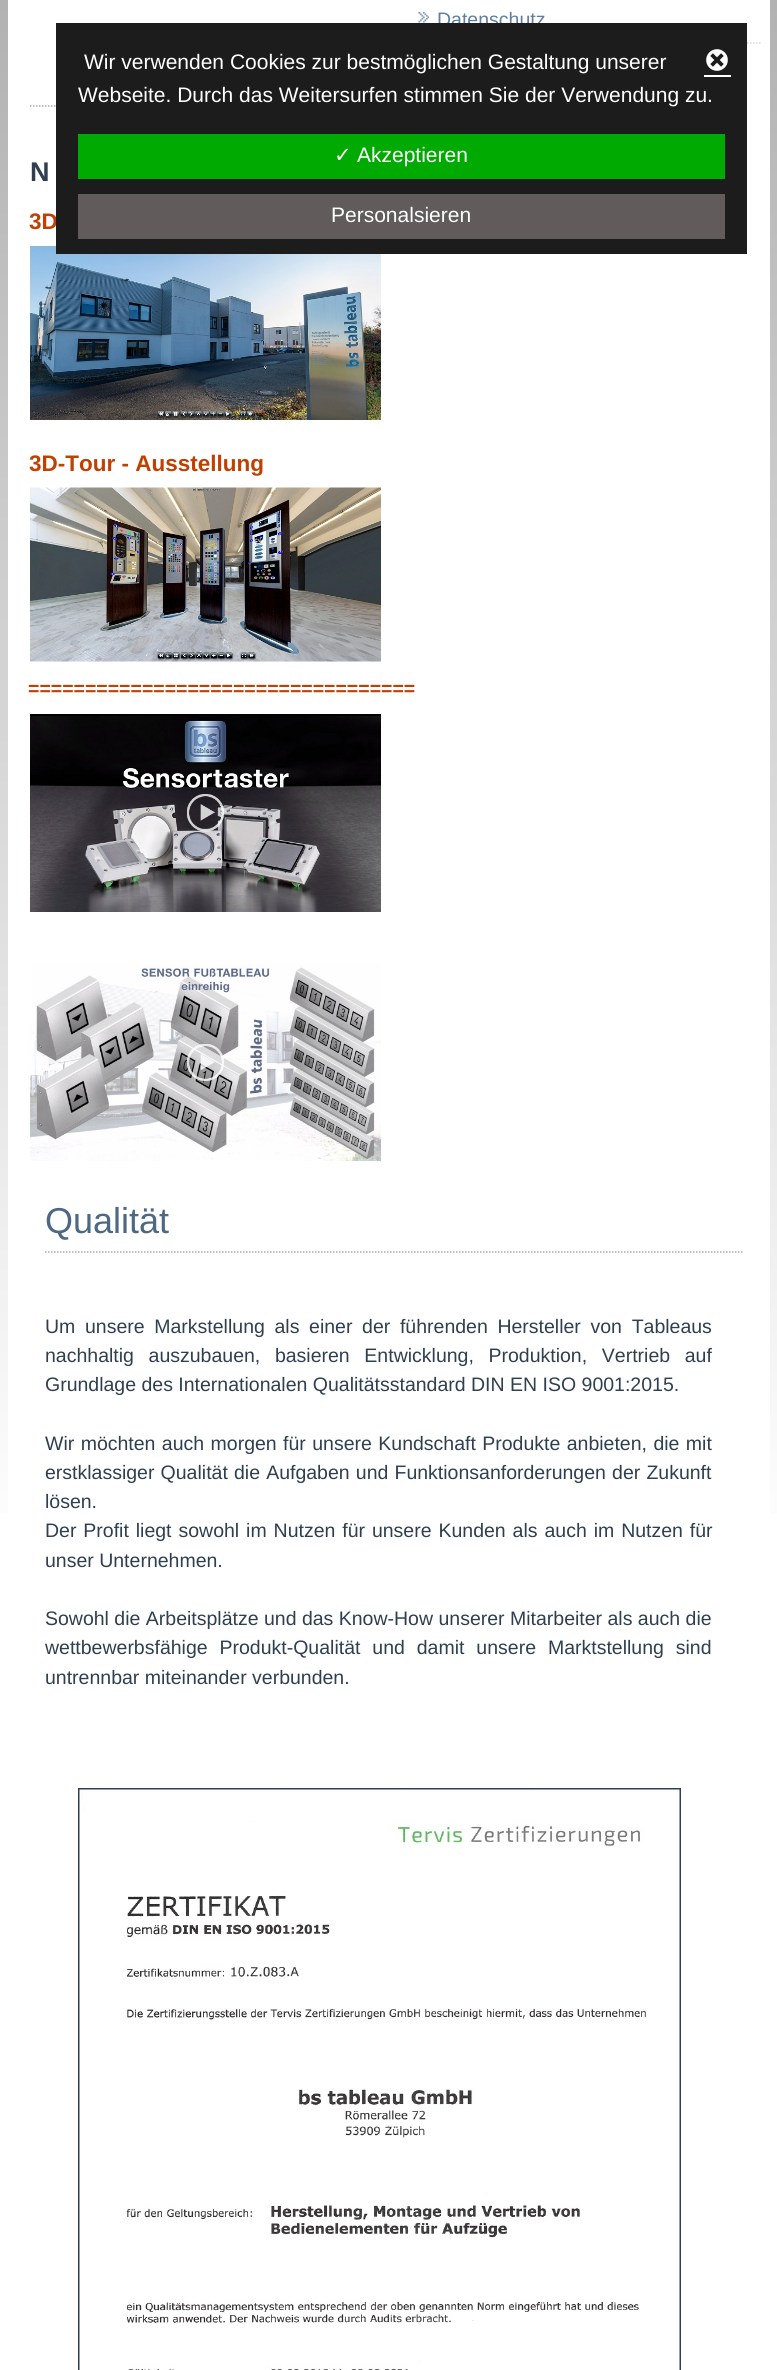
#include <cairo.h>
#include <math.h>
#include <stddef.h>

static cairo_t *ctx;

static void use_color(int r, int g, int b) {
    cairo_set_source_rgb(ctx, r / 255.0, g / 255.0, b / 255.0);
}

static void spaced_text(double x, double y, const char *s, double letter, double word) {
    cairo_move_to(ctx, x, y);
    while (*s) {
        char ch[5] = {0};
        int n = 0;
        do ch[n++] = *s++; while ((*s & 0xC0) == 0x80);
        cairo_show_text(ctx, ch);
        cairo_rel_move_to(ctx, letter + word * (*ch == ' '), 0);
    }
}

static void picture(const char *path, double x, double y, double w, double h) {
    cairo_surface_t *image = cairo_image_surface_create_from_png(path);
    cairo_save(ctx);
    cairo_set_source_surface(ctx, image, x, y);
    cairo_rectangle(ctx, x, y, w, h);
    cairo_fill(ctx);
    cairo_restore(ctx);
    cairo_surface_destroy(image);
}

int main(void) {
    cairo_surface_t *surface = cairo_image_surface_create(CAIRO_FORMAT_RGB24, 777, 2370);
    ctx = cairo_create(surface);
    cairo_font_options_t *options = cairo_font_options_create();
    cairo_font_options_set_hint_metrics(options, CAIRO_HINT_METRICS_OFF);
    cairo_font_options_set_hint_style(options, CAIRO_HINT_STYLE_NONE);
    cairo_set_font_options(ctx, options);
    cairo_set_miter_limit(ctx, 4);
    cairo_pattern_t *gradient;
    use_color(255, 255, 255);
    cairo_paint(ctx);
    gradient = cairo_pattern_create_linear(388, 0, 389, 2370);
    cairo_pattern_add_color_stop_rgba(gradient, 0, 0.698, 0.698, 0.698, 1);
    cairo_pattern_add_color_stop_rgba(gradient, 0.66, 1, 1, 1, 1);
    cairo_set_source(ctx, gradient);
    cairo_pattern_destroy(gradient);
    cairo_rectangle(ctx, 0, 0, 777, 1514);
    cairo_fill(ctx);
    use_color(255, 255, 255);
    cairo_rectangle(ctx, 8, 0, 762, 1514);
    cairo_fill(ctx);
    picture("img1.png", 418, 12, 11, 11);
    cairo_select_font_face(ctx, "Liberation Sans", CAIRO_FONT_SLANT_NORMAL, CAIRO_FONT_WEIGHT_NORMAL);
    cairo_set_font_size(ctx, 19.5);
    use_color(96, 126, 159);
    cairo_move_to(ctx, 437, 26);
    cairo_show_text(ctx, "Datenschutz");
    cairo_new_path(ctx);
    cairo_move_to(ctx, 396, 43);
    cairo_line_to(ctx, 762, 43);
    use_color(217, 217, 217);
    cairo_set_line_width(ctx, 1.5);
    cairo_set_dash(ctx, (double[]){1.5, 1.5}, 2, 0);
    cairo_stroke(ctx);
    cairo_new_path(ctx);
    cairo_move_to(ctx, 30, 106);
    cairo_line_to(ctx, 366, 106);
    use_color(171, 171, 171);
    cairo_stroke(ctx);
    cairo_select_font_face(ctx, "Liberation Sans", CAIRO_FONT_SLANT_NORMAL, CAIRO_FONT_WEIGHT_BOLD);
    cairo_set_font_size(ctx, 27);
    use_color(48, 63, 80);
    cairo_move_to(ctx, 30, 181);
    cairo_show_text(ctx, "N");
    cairo_set_font_size(ctx, 22.5);
    use_color(191, 64, 0);
    cairo_move_to(ctx, 29, 229);
    cairo_show_text(ctx, "3D");
    picture("img2.png", 30, 246, 351, 174);
    cairo_move_to(ctx, 29, 471);
    cairo_show_text(ctx, "3D-Tour - Ausstellung");
    picture("img3.png", 30, 487, 351, 175);
    cairo_set_font_size(ctx, 19.5);
    cairo_move_to(ctx, 28, 695);
    cairo_show_text(ctx, "==================================");
    picture("img4.png", 30, 714, 351, 198);
    picture("img5.png", 30, 964, 351, 197);
    cairo_select_font_face(ctx, "Liberation Sans", CAIRO_FONT_SLANT_NORMAL, CAIRO_FONT_WEIGHT_NORMAL);
    cairo_set_font_size(ctx, 36);
    use_color(78, 104, 131);
    cairo_move_to(ctx, 45, 1233);
    cairo_show_text(ctx, "Qualität");
    cairo_new_path(ctx);
    cairo_move_to(ctx, 45, 1252);
    cairo_line_to(ctx, 742.5, 1252);
    use_color(171, 171, 171);
    cairo_stroke(ctx);
    cairo_set_font_size(ctx, 19.5);
    use_color(48, 63, 80);
    spaced_text(45, 1333, "Um unsere Markstellung als einer der führenden Hersteller von Tableaus", 0, 4.25);
    spaced_text(45, 1362, "nachhaltig auszubauen, basieren Entwicklung, Produktion, Vertrieb auf", 0, 9.25);
    cairo_move_to(ctx, 45, 1391);
    cairo_show_text(ctx, "Grundlage des Internationalen Qualitätsstandard DIN EN ISO 9001:2015.");
    spaced_text(45, 1450, "Wir möchten auch morgen für unsere Kundschaft Produkte anbieten, die mit", 0, 1);
    spaced_text(45, 1479, "erstklassiger Qualität die Aufgaben und Funktionsanforderungen der Zukunft", 0, 0.75);
    cairo_move_to(ctx, 45, 1508);
    cairo_show_text(ctx, "lösen.");
    spaced_text(45, 1537, "Der Profit liegt sowohl im Nutzen für unsere Kunden als auch im Nutzen für", 0, 1.5);
    cairo_move_to(ctx, 45, 1567);
    cairo_show_text(ctx, "unser Unternehmen.");
    cairo_move_to(ctx, 45, 1625);
    cairo_show_text(ctx, "Sowohl die Arbeitsplätze und das Know-How unserer Mitarbeiter als auch die");
    spaced_text(45, 1654, "wettbewerbsfähige Produkt-Qualität und damit unsere Marktstellung sind", 0, 6.5);
    cairo_move_to(ctx, 45, 1684);
    cairo_show_text(ctx, "untrennbar miteinander verbunden.");
    cairo_rectangle(ctx, 79, 1789, 601, 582);
    cairo_set_line_width(ctx, 2);
    cairo_set_dash(ctx, NULL, 0, 0);
    cairo_stroke(ctx);
    picture("img6.png", 79, 1789, 601, 581);
    use_color(29, 28, 28);
    cairo_rectangle(ctx, 56, 23, 691, 231);
    cairo_fill(ctx);
    cairo_set_font_size(ctx, 21);
    use_color(255, 255, 255);
    cairo_move_to(ctx, 84, 69);
    cairo_show_text(ctx, "Wir verwenden Cookies zur bestmöglichen Gestaltung unserer");
    cairo_move_to(ctx, 78, 102);
    cairo_show_text(ctx, "Webseite. Durch das Weitersurfen stimmen Sie der Verwendung zu.");
    picture("img7.png", 706, 49, 22, 22);
    cairo_rectangle(ctx, 704, 75, 27, 2);
    cairo_fill(ctx);
    use_color(0, 170, 0);
    cairo_rectangle(ctx, 78, 134, 647, 45);
    cairo_fill(ctx);
    cairo_select_font_face(ctx, "DejaVu Sans", CAIRO_FONT_SLANT_NORMAL, CAIRO_FONT_WEIGHT_NORMAL);
    use_color(255, 255, 255);
    cairo_move_to(ctx, 334, 162);
    cairo_show_text(ctx, "✓");
    cairo_select_font_face(ctx, "Liberation Sans", CAIRO_FONT_SLANT_NORMAL, CAIRO_FONT_WEIGHT_NORMAL);
    cairo_move_to(ctx, 357, 162);
    cairo_show_text(ctx, "Akzeptieren");
    use_color(97, 91, 91);
    cairo_rectangle(ctx, 78, 194, 647, 45);
    cairo_fill(ctx);
    use_color(255, 255, 255);
    cairo_move_to(ctx, 331, 222);
    cairo_show_text(ctx, "Personalsieren");
    cairo_surface_write_to_png(surface, "result.png");
    cairo_font_options_destroy(options);
    cairo_destroy(ctx);
    cairo_surface_destroy(surface);
    return 0;
}
